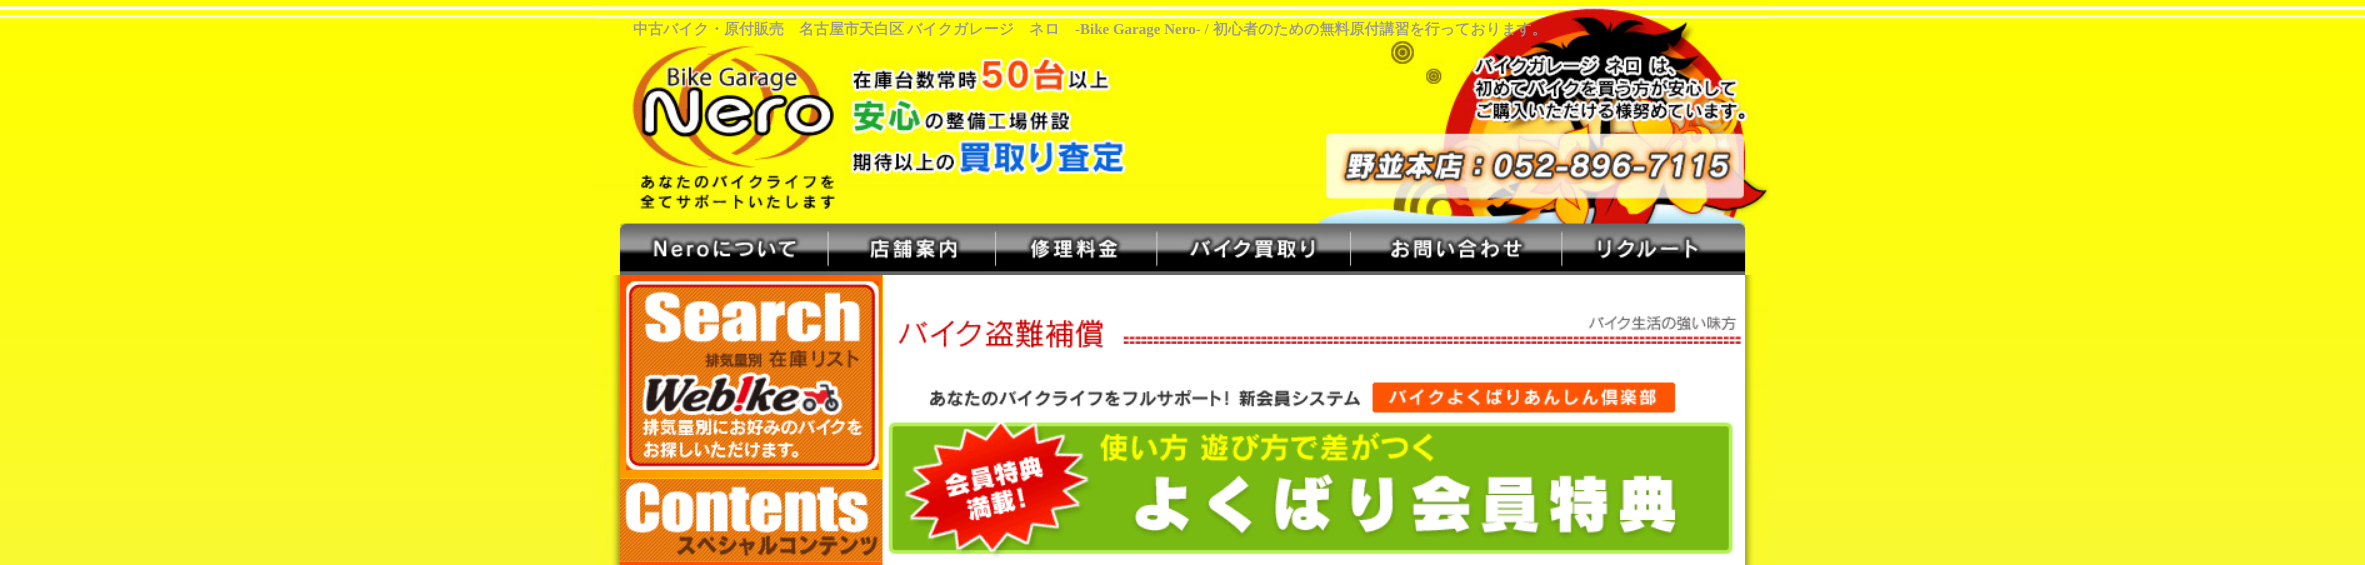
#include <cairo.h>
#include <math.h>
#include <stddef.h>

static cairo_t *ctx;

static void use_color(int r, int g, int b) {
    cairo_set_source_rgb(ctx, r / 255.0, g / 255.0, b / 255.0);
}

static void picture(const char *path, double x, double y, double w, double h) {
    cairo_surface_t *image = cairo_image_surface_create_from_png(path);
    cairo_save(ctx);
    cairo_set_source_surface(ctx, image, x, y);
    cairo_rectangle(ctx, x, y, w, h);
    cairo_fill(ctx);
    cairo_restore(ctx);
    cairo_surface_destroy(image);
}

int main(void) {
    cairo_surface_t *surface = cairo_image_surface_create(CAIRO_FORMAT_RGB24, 2365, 565);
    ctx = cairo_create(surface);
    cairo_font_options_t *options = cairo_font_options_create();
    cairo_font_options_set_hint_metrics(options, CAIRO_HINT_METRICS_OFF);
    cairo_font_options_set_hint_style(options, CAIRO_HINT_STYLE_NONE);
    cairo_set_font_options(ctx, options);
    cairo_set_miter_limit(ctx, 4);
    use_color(255, 255, 255);
    cairo_paint(ctx);
    picture("img1.png", 0, 0, 2365, 565);
    picture("img2.png", 595, 2, 1175, 273);
    cairo_select_font_face(ctx, "WenQuanYi Zen Hei", CAIRO_FONT_SLANT_NORMAL, CAIRO_FONT_WEIGHT_BOLD);
    cairo_set_font_size(ctx, 15);
    use_color(153, 153, 153);
    cairo_move_to(ctx, 633, 34);
    cairo_show_text(ctx, "中古バイク・原付販売　名古屋市天白区");
    cairo_move_to(ctx, 907, 34);
    cairo_show_text(ctx, "バイクガレージ　ネロ");
    cairo_select_font_face(ctx, "Liberation Serif", CAIRO_FONT_SLANT_NORMAL, CAIRO_FONT_WEIGHT_BOLD);
    cairo_move_to(ctx, 1075, 34);
    cairo_show_text(ctx, "-Bike Garage Nero- /");
    cairo_select_font_face(ctx, "WenQuanYi Zen Hei", CAIRO_FONT_SLANT_NORMAL, CAIRO_FONT_WEIGHT_BOLD);
    cairo_move_to(ctx, 1213, 34);
    cairo_show_text(ctx, "初心者のための無料原付講習を行っております。");
    picture("img3.png", 620, 223, 209, 52);
    picture("img4.png", 828, 223, 169, 44);
    picture("img5.png", 996, 223, 162, 44);
    picture("img6.png", 1157, 223, 195, 44);
    picture("img7.png", 1351, 223, 212, 44);
    picture("img8.png", 1562, 223, 183, 52);
    picture("img9.png", 595, 275, 1175, 290);
    use_color(255, 255, 255);
    cairo_rectangle(ctx, 620, 275, 1125, 290);
    cairo_fill(ctx);
    use_color(255, 255, 9);
    cairo_rectangle(ctx, 620, 275, 263, 204);
    cairo_fill(ctx);
    picture("img10.png", 620, 275, 263, 204);
    picture("img11.png", 626, 281, 253, 189);
    picture("img13.png", 620, 561, 263, 4);
    picture("img12.png", 620, 479, 263, 83);
    picture("img14.png", 898, 316, 844, 32);
    picture("img15.png", 888, 382, 845, 176);
    cairo_surface_write_to_png(surface, "result.png");
    cairo_font_options_destroy(options);
    cairo_destroy(ctx);
    cairo_surface_destroy(surface);
    return 0;
}
